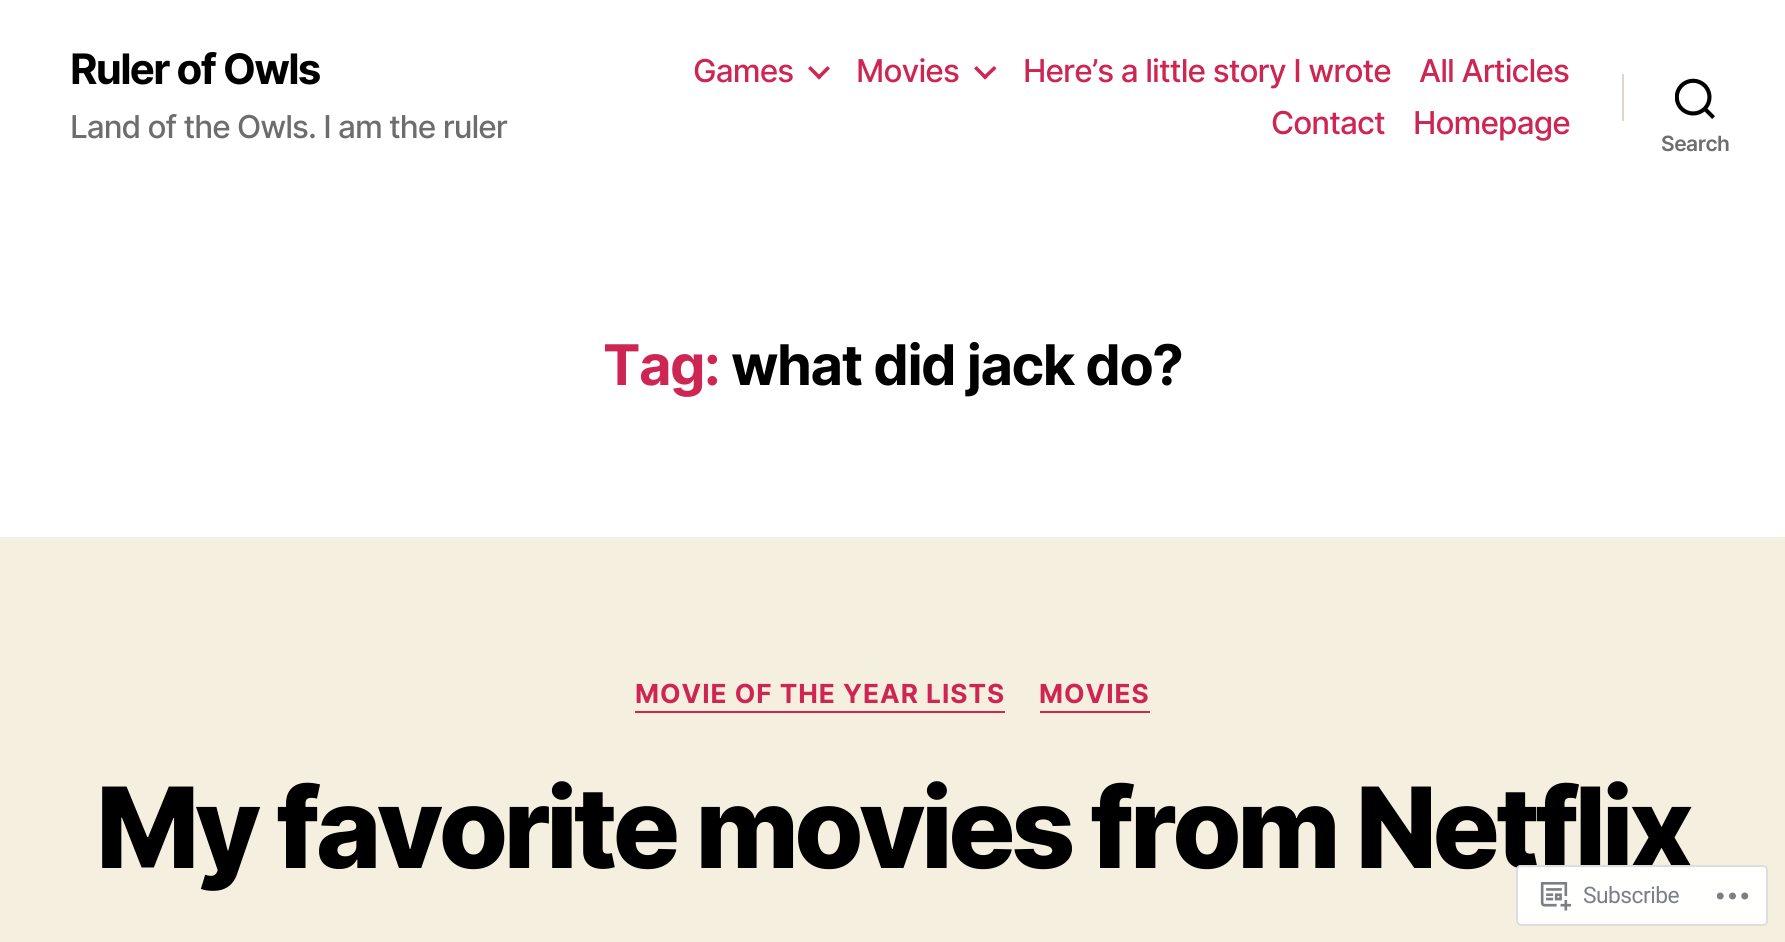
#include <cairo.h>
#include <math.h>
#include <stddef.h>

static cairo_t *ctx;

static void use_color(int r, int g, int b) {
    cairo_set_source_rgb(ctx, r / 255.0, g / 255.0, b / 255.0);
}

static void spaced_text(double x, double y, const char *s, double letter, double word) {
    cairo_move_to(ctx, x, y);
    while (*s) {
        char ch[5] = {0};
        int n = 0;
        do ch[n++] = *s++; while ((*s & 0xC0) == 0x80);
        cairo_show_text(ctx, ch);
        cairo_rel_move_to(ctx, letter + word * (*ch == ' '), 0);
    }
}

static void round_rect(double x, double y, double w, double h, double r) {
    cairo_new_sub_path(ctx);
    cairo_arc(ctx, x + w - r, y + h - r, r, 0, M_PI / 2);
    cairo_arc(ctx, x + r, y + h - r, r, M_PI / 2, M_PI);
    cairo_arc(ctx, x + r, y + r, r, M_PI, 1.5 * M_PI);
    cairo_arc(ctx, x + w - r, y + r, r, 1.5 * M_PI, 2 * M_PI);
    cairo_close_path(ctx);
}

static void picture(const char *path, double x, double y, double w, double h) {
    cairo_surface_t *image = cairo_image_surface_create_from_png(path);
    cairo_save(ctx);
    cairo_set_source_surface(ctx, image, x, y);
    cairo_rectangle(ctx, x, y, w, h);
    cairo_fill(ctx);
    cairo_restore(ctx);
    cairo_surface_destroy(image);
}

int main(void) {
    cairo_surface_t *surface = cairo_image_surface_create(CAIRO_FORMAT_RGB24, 1785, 942);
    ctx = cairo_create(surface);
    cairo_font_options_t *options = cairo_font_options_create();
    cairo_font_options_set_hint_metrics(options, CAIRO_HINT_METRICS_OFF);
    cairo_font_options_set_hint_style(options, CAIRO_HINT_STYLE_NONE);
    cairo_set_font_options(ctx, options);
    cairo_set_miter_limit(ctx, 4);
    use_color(245, 239, 224);
    cairo_paint(ctx);
    use_color(255, 255, 255);
    cairo_rectangle(ctx, 0, 0, 1785, 537);
    cairo_fill(ctx);
    cairo_select_font_face(ctx, "Inter", CAIRO_FONT_SLANT_NORMAL, CAIRO_FONT_WEIGHT_BOLD);
    cairo_set_font_size(ctx, 42);
    use_color(0, 0, 0);
    spaced_text(70, 84, "Ruler of Owls", -1.75, 0);
    cairo_select_font_face(ctx, "Inter Medium", CAIRO_FONT_SLANT_NORMAL, CAIRO_FONT_WEIGHT_NORMAL);
    cairo_set_font_size(ctx, 31.5);
    use_color(109, 109, 109);
    spaced_text(70, 138, "Land of the Owls. I am the ruler", -1, 0);
    use_color(205, 38, 83);
    spaced_text(693, 82, "Games", -0.9, 0);
    cairo_new_path(ctx);
    cairo_move_to(ctx, 808, 68.5);
    cairo_line_to(ctx, 810.5, 66);
    cairo_line_to(ctx, 821.5, 77);
    cairo_line_to(ctx, 819, 79.5);
    cairo_close_path(ctx);
    cairo_fill(ctx);
    cairo_new_path(ctx);
    cairo_move_to(ctx, 816.5, 77);
    cairo_line_to(ctx, 827.5, 66);
    cairo_line_to(ctx, 830, 68.5);
    cairo_line_to(ctx, 819, 79.5);
    cairo_close_path(ctx);
    cairo_fill(ctx);
    spaced_text(856, 82, "Movies", -0.9, 0);
    cairo_new_path(ctx);
    cairo_move_to(ctx, 974, 68.5);
    cairo_line_to(ctx, 976.5, 66);
    cairo_line_to(ctx, 987.5, 77);
    cairo_line_to(ctx, 985, 79.5);
    cairo_close_path(ctx);
    cairo_fill(ctx);
    cairo_new_path(ctx);
    cairo_move_to(ctx, 982.5, 77);
    cairo_line_to(ctx, 994, 66);
    cairo_line_to(ctx, 996.5, 68.5);
    cairo_line_to(ctx, 985, 79.5);
    cairo_close_path(ctx);
    cairo_fill(ctx);
    spaced_text(1023, 82, "Here’s a little story I wrote", -0.9, 0);
    spaced_text(1419, 82, "All Articles", -0.9, 0);
    spaced_text(1271, 134, "Contact", -0.9, 0);
    spaced_text(1413, 134, "Homepage", -0.9, 0);
    use_color(220, 215, 202);
    cairo_rectangle(ctx, 1622, 74, 2, 47);
    cairo_fill(ctx);
    picture("img1.png", 1675, 78, 40, 41);
    cairo_select_font_face(ctx, "Inter SemiBold", CAIRO_FONT_SLANT_NORMAL, CAIRO_FONT_WEIGHT_NORMAL);
    cairo_set_font_size(ctx, 21);
    use_color(109, 109, 109);
    spaced_text(1661, 151, "Search", -0.5, 0);
    cairo_select_font_face(ctx, "Inter", CAIRO_FONT_SLANT_NORMAL, CAIRO_FONT_WEIGHT_BOLD);
    cairo_set_font_size(ctx, 56);
    use_color(205, 38, 83);
    spaced_text(603, 385, "Tag:", -1.5, 0);
    use_color(0, 0, 0);
    spaced_text(731, 385, "what did jack do?", -1.5, 0);
    use_color(205, 38, 83);
    cairo_rectangle(ctx, 635, 711, 370, 2);
    cairo_fill(ctx);
    cairo_set_font_size(ctx, 26.25);
    spaced_text(635, 703, "MOVIE OF THE YEAR LISTS", 1, 0);
    cairo_rectangle(ctx, 1040, 711, 110, 2);
    cairo_fill(ctx);
    spaced_text(1039, 703, "MOVIES", 1, 0);
    cairo_select_font_face(ctx, "Inter ExtraBold", CAIRO_FONT_SLANT_NORMAL, CAIRO_FONT_WEIGHT_NORMAL);
    cairo_set_font_size(ctx, 112);
    use_color(0, 0, 0);
    spaced_text(96, 868, "My favorite movies from Netflix", -4.65, 0);
    cairo_set_source_rgba(ctx, 1, 1, 1, 0.98);
    round_rect(1516, 865, 252, 61, 5);
    cairo_fill(ctx);
    round_rect(1517, 866, 250, 59, 4);
    cairo_set_source_rgba(ctx, 0.863, 0.863, 0.871, 0.98);
    cairo_stroke(ctx);
    picture("img2.png", 1540, 882, 32, 29);
    cairo_select_font_face(ctx, "Roboto", CAIRO_FONT_SLANT_NORMAL, CAIRO_FONT_WEIGHT_NORMAL);
    cairo_set_font_size(ctx, 22.75);
    use_color(123, 126, 132);
    spaced_text(1583, 903, "Subscribe", -0.5, 0);
    picture("img3.png", 1716, 892, 33, 8);
    cairo_surface_write_to_png(surface, "result.png");
    cairo_font_options_destroy(options);
    cairo_destroy(ctx);
    cairo_surface_destroy(surface);
    return 0;
}
